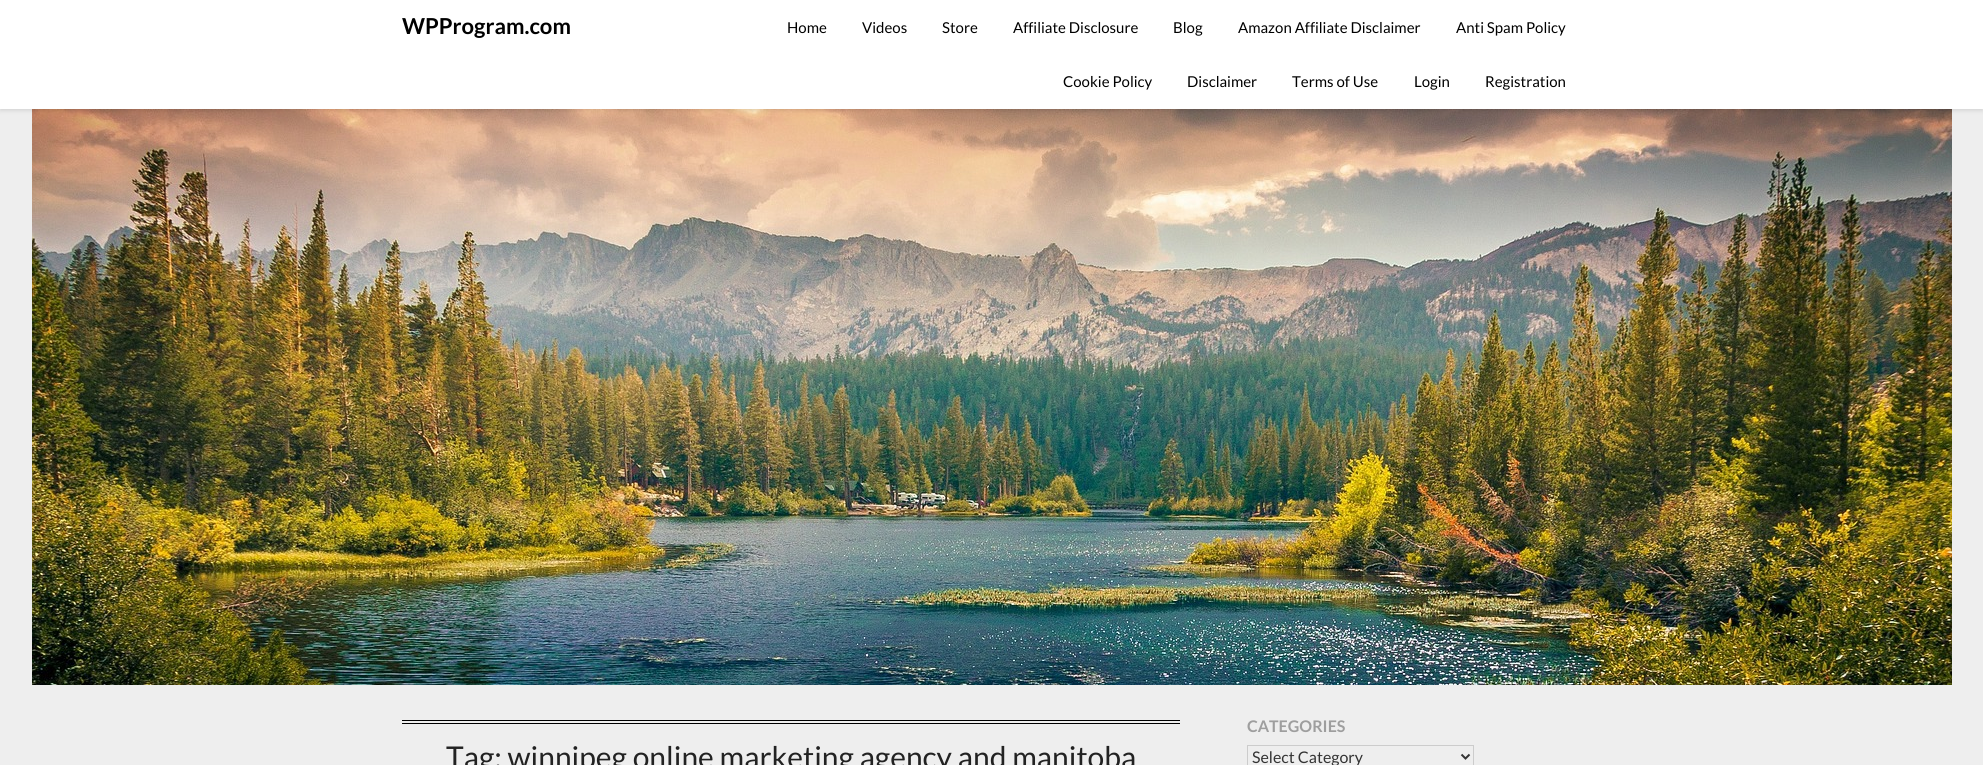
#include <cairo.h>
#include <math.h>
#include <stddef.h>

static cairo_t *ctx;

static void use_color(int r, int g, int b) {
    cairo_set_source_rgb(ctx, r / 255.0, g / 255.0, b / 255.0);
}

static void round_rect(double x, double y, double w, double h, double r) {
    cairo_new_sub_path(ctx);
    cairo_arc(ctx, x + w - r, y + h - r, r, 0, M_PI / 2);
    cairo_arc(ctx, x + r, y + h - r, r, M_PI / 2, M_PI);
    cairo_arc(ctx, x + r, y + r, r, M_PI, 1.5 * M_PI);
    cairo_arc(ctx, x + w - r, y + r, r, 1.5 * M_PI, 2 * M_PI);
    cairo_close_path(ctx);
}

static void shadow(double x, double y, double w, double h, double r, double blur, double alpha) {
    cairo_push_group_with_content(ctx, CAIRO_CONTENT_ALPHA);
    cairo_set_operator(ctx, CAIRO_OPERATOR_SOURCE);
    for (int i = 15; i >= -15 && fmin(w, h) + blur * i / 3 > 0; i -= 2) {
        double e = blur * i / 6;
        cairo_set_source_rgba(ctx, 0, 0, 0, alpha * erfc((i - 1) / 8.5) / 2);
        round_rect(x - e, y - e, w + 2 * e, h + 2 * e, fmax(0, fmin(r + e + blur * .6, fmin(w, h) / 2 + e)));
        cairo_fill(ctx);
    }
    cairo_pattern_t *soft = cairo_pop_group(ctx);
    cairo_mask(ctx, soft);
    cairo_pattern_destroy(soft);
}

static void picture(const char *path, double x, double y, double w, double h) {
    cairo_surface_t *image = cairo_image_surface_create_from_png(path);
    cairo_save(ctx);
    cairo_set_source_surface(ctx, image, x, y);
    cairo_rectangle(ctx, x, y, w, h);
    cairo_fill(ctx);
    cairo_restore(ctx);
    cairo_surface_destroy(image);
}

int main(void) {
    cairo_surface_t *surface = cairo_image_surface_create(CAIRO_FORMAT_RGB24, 1983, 765);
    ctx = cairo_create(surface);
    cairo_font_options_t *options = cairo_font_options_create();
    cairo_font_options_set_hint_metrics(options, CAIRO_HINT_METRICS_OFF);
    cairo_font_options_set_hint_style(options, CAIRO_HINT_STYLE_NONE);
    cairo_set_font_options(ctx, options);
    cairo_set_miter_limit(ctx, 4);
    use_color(238, 238, 238);
    cairo_paint(ctx);
    picture("img1.png", 32, 109, 1920, 576);
    use_color(0, 0, 0);
    shadow(0, 2, 1983, 109, 0, 2, 0.1);
    use_color(255, 255, 255);
    cairo_rectangle(ctx, 0, 0, 1983, 109);
    cairo_fill(ctx);
    cairo_select_font_face(ctx, "Lato", CAIRO_FONT_SLANT_NORMAL, CAIRO_FONT_WEIGHT_BOLD);
    cairo_set_font_size(ctx, 22);
    use_color(0, 0, 0);
    cairo_move_to(ctx, 402, 34);
    cairo_show_text(ctx, "WPProgram.com");
    cairo_select_font_face(ctx, "Lato", CAIRO_FONT_SLANT_NORMAL, CAIRO_FONT_WEIGHT_NORMAL);
    cairo_set_font_size(ctx, 15);
    cairo_move_to(ctx, 787, 33);
    cairo_show_text(ctx, "Home");
    cairo_move_to(ctx, 862, 33);
    cairo_show_text(ctx, "Videos");
    cairo_move_to(ctx, 942, 33);
    cairo_show_text(ctx, "Store");
    cairo_move_to(ctx, 1013, 33);
    cairo_show_text(ctx, "Affiliate Disclosure");
    cairo_move_to(ctx, 1173, 33);
    cairo_show_text(ctx, "Blog");
    cairo_move_to(ctx, 1238, 33);
    cairo_show_text(ctx, "Amazon Affiliate Disclaimer");
    cairo_move_to(ctx, 1456, 33);
    cairo_show_text(ctx, "Anti Spam Policy");
    cairo_move_to(ctx, 1063, 87);
    cairo_show_text(ctx, "Cookie Policy");
    cairo_move_to(ctx, 1187, 87);
    cairo_show_text(ctx, "Disclaimer");
    cairo_move_to(ctx, 1292, 87);
    cairo_show_text(ctx, "Terms of Use");
    cairo_move_to(ctx, 1414, 87);
    cairo_show_text(ctx, "Login");
    cairo_move_to(ctx, 1485, 87);
    cairo_show_text(ctx, "Registration");
    cairo_rectangle(ctx, 402, 720, 778, 1);
    cairo_fill(ctx);
    cairo_rectangle(ctx, 402, 723, 778, 1);
    cairo_fill(ctx);
    cairo_set_font_size(ctx, 30);
    use_color(34, 34, 34);
    cairo_move_to(ctx, 446, 768);
    cairo_show_text(ctx, "Tag: winnipeg online marketing agency and manitoba");
    cairo_select_font_face(ctx, "Lato", CAIRO_FONT_SLANT_NORMAL, CAIRO_FONT_WEIGHT_BOLD);
    cairo_set_font_size(ctx, 16);
    use_color(158, 158, 158);
    cairo_move_to(ctx, 1247, 732);
    cairo_show_text(ctx, "CATEGORIES");
    cairo_rectangle(ctx, 1247.5, 745.5, 226, 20);
    use_color(204, 204, 204);
    cairo_set_line_width(ctx, 1);
    cairo_stroke(ctx);
    cairo_new_path(ctx);
    cairo_move_to(ctx, 1461.5, 754.5);
    cairo_line_to(ctx, 1465.5, 758.5);
    cairo_line_to(ctx, 1469.5, 754.5);
    use_color(51, 51, 51);
    cairo_set_line_width(ctx, 2);
    cairo_stroke(ctx);
    cairo_select_font_face(ctx, "Lato", CAIRO_FONT_SLANT_NORMAL, CAIRO_FONT_WEIGHT_NORMAL);
    cairo_move_to(ctx, 1252, 763);
    cairo_show_text(ctx, "Select Category");
    cairo_surface_write_to_png(surface, "result.png");
    cairo_font_options_destroy(options);
    cairo_destroy(ctx);
    cairo_surface_destroy(surface);
    return 0;
}
